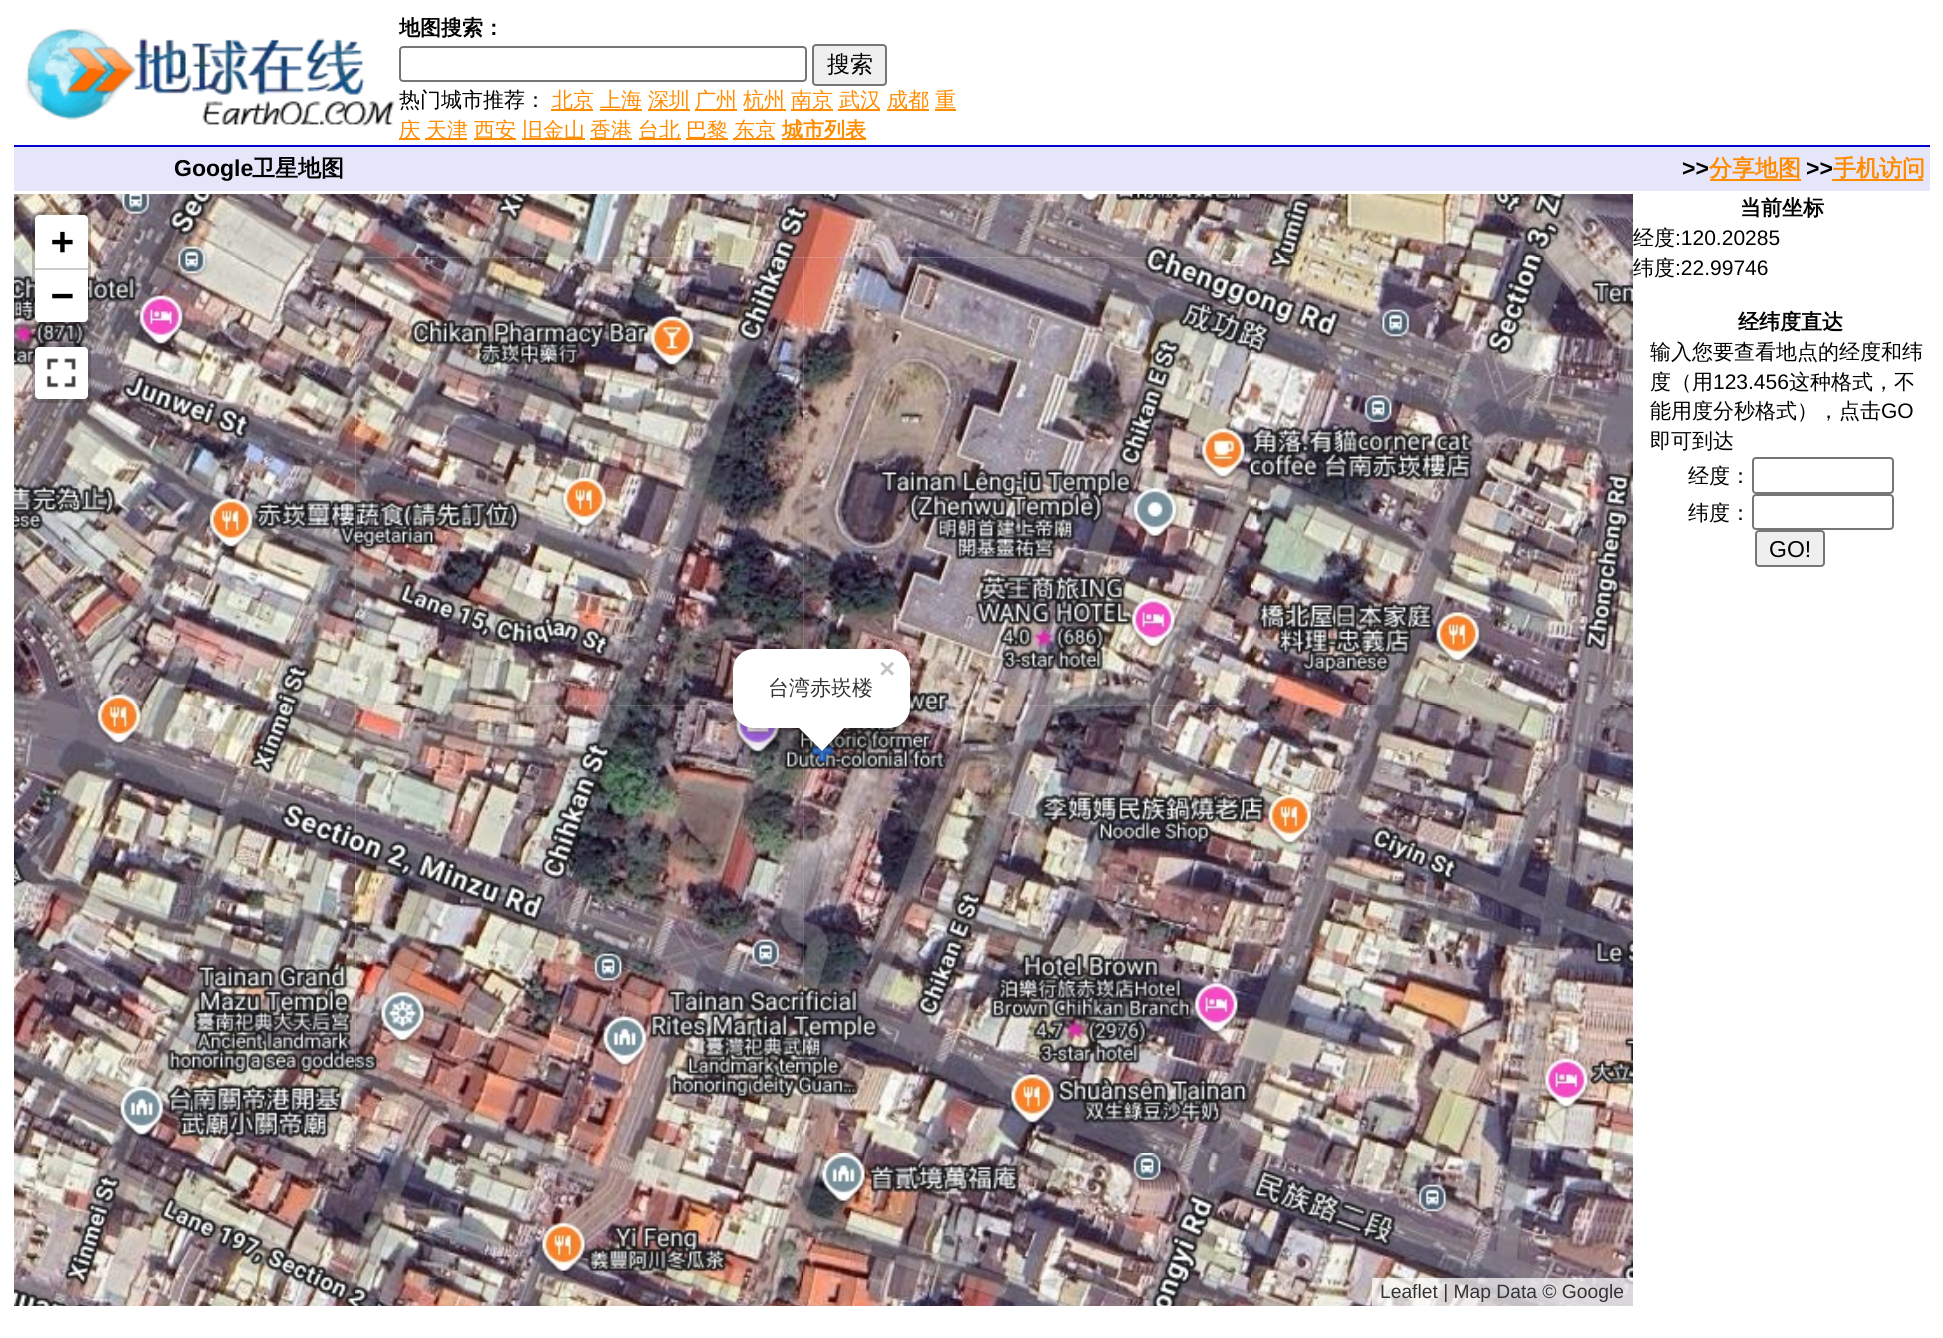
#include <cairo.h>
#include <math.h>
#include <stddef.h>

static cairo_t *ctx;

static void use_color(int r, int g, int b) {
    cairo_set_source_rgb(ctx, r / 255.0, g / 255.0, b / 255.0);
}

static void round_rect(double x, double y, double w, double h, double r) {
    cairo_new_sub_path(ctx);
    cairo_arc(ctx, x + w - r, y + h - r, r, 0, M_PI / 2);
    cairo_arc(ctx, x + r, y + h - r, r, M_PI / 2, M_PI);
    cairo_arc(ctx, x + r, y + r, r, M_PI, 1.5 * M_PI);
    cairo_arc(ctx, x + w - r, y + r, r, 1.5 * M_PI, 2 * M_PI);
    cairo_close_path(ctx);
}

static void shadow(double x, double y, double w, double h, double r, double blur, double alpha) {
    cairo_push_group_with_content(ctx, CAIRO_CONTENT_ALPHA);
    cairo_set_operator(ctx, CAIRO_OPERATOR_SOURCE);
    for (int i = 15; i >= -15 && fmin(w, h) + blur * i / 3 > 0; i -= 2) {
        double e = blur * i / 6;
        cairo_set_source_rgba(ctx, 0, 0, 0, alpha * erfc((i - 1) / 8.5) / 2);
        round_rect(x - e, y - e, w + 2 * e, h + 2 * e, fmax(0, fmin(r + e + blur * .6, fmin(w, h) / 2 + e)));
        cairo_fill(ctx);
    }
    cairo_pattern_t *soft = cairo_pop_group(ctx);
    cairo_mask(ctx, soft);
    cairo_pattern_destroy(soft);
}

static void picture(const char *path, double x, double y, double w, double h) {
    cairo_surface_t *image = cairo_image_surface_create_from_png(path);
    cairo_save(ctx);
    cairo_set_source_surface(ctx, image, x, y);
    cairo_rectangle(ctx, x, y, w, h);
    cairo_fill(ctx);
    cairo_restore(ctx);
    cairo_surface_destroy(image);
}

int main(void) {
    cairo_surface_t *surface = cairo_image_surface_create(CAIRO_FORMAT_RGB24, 1943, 1338);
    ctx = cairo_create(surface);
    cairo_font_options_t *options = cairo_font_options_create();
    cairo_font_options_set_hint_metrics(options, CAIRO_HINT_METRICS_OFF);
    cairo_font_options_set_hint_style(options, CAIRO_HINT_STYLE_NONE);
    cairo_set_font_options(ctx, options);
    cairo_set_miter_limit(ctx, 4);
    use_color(255, 255, 255);
    cairo_paint(ctx);
    picture("img1.png", 24, 28, 371, 99);
    cairo_select_font_face(ctx, "WenQuanYi Zen Hei", CAIRO_FONT_SLANT_NORMAL, CAIRO_FONT_WEIGHT_BOLD);
    cairo_set_font_size(ctx, 21);
    use_color(0, 0, 0);
    cairo_move_to(ctx, 399, 35);
    cairo_show_text(ctx, "地图搜索：");
    round_rect(400, 47, 406, 34, 3);
    use_color(118, 118, 118);
    cairo_stroke(ctx);
    use_color(239, 239, 239);
    round_rect(813, 45, 73, 40, 3);
    cairo_fill_preserve(ctx);
    use_color(118, 118, 118);
    cairo_stroke(ctx);
    cairo_select_font_face(ctx, "WenQuanYi Zen Hei Medium", CAIRO_FONT_SLANT_NORMAL, CAIRO_FONT_WEIGHT_NORMAL);
    cairo_set_font_size(ctx, 23);
    use_color(0, 0, 0);
    cairo_move_to(ctx, 827, 72);
    cairo_show_text(ctx, "搜索");
    cairo_set_font_size(ctx, 21);
    cairo_move_to(ctx, 399, 107);
    cairo_show_text(ctx, "热门城市推荐：");
    use_color(255, 140, 0);
    cairo_rectangle(ctx, 551, 109, 42, 2);
    cairo_fill(ctx);
    cairo_move_to(ctx, 552, 107);
    cairo_show_text(ctx, "北京");
    cairo_rectangle(ctx, 600, 109, 42, 2);
    cairo_fill(ctx);
    cairo_move_to(ctx, 600, 107);
    cairo_show_text(ctx, "上海");
    cairo_rectangle(ctx, 648, 109, 42, 2);
    cairo_fill(ctx);
    cairo_move_to(ctx, 648, 107);
    cairo_show_text(ctx, "深圳");
    cairo_rectangle(ctx, 695, 109, 42, 2);
    cairo_fill(ctx);
    cairo_move_to(ctx, 695, 107);
    cairo_show_text(ctx, "广州");
    cairo_rectangle(ctx, 744, 109, 42, 2);
    cairo_fill(ctx);
    cairo_move_to(ctx, 743, 107);
    cairo_show_text(ctx, "杭州");
    cairo_rectangle(ctx, 791, 109, 42, 2);
    cairo_fill(ctx);
    cairo_move_to(ctx, 791, 107);
    cairo_show_text(ctx, "南京");
    cairo_rectangle(ctx, 838, 109, 42, 2);
    cairo_fill(ctx);
    cairo_move_to(ctx, 839, 107);
    cairo_show_text(ctx, "武汉");
    cairo_rectangle(ctx, 887, 109, 42, 2);
    cairo_fill(ctx);
    cairo_move_to(ctx, 887, 107);
    cairo_show_text(ctx, "成都");
    cairo_move_to(ctx, 935, 107);
    cairo_show_text(ctx, "重");
    cairo_rectangle(ctx, 935, 109, 21, 2);
    cairo_fill(ctx);
    cairo_rectangle(ctx, 399, 138, 21, 2);
    cairo_fill(ctx);
    cairo_move_to(ctx, 399, 137);
    cairo_show_text(ctx, "庆");
    cairo_rectangle(ctx, 425, 138, 42, 2);
    cairo_fill(ctx);
    cairo_move_to(ctx, 426, 137);
    cairo_show_text(ctx, "天津");
    cairo_rectangle(ctx, 474, 138, 42, 2);
    cairo_fill(ctx);
    cairo_move_to(ctx, 474, 137);
    cairo_show_text(ctx, "西安");
    cairo_rectangle(ctx, 522, 138, 63, 2);
    cairo_fill(ctx);
    cairo_move_to(ctx, 522, 137);
    cairo_show_text(ctx, "旧金山");
    cairo_rectangle(ctx, 590, 138, 42, 2);
    cairo_fill(ctx);
    cairo_move_to(ctx, 590, 137);
    cairo_show_text(ctx, "香港");
    cairo_rectangle(ctx, 639, 138, 42, 2);
    cairo_fill(ctx);
    cairo_move_to(ctx, 638, 137);
    cairo_show_text(ctx, "台北");
    cairo_rectangle(ctx, 686, 138, 42, 2);
    cairo_fill(ctx);
    cairo_move_to(ctx, 686, 137);
    cairo_show_text(ctx, "巴黎");
    cairo_rectangle(ctx, 733, 138, 42, 2);
    cairo_fill(ctx);
    cairo_move_to(ctx, 734, 137);
    cairo_show_text(ctx, "东京");
    cairo_rectangle(ctx, 782, 138, 84, 2);
    cairo_fill(ctx);
    cairo_select_font_face(ctx, "WenQuanYi Zen Hei", CAIRO_FONT_SLANT_NORMAL, CAIRO_FONT_WEIGHT_BOLD);
    cairo_move_to(ctx, 782, 137);
    cairo_show_text(ctx, "城市列表");
    use_color(230, 230, 250);
    cairo_rectangle(ctx, 14, 147, 1916, 44);
    cairo_fill(ctx);
    use_color(0, 0, 205);
    cairo_rectangle(ctx, 14, 145, 1916, 2);
    cairo_fill(ctx);
    cairo_select_font_face(ctx, "Liberation Sans", CAIRO_FONT_SLANT_NORMAL, CAIRO_FONT_WEIGHT_BOLD);
    cairo_set_font_size(ctx, 23);
    use_color(0, 0, 0);
    cairo_move_to(ctx, 174, 176);
    cairo_show_text(ctx, "Google");
    cairo_select_font_face(ctx, "WenQuanYi Zen Hei", CAIRO_FONT_SLANT_NORMAL, CAIRO_FONT_WEIGHT_BOLD);
    cairo_move_to(ctx, 252, 176);
    cairo_show_text(ctx, "卫星地图");
    cairo_select_font_face(ctx, "Liberation Sans", CAIRO_FONT_SLANT_NORMAL, CAIRO_FONT_WEIGHT_BOLD);
    cairo_move_to(ctx, 1682, 176);
    cairo_show_text(ctx, ">>");
    cairo_select_font_face(ctx, "WenQuanYi Zen Hei", CAIRO_FONT_SLANT_NORMAL, CAIRO_FONT_WEIGHT_BOLD);
    use_color(255, 140, 0);
    cairo_move_to(ctx, 1709, 176);
    cairo_show_text(ctx, "分享地图");
    cairo_rectangle(ctx, 1710, 179, 91, 2);
    cairo_fill(ctx);
    cairo_select_font_face(ctx, "Liberation Sans", CAIRO_FONT_SLANT_NORMAL, CAIRO_FONT_WEIGHT_BOLD);
    use_color(0, 0, 0);
    cairo_move_to(ctx, 1806, 176);
    cairo_show_text(ctx, ">>");
    cairo_select_font_face(ctx, "WenQuanYi Zen Hei", CAIRO_FONT_SLANT_NORMAL, CAIRO_FONT_WEIGHT_BOLD);
    use_color(255, 140, 0);
    cairo_move_to(ctx, 1833, 176);
    cairo_show_text(ctx, "手机访问");
    cairo_rectangle(ctx, 1832, 179, 91, 2);
    cairo_fill(ctx);
    use_color(221, 221, 221);
    cairo_rectangle(ctx, 355, 257, 896, 896);
    cairo_fill(ctx);
    picture("img3.png", 14, 194, 341, 63);
    picture("img7.png", 14, 257, 341, 448);
    round_rect(34, 214, 55, 110, 5);
    cairo_set_source_rgba(ctx, 0, 0, 0, 0.2);
    cairo_set_line_width(ctx, 4);
    cairo_stroke(ctx);
    use_color(255, 255, 255);
    cairo_new_path(ctx);
    cairo_move_to(ctx, 39, 215);
    cairo_line_to(ctx, 84, 215);
    cairo_curve_to(ctx, 86, 215, 88, 217, 88, 219);
    cairo_line_to(ctx, 88, 270);
    cairo_line_to(ctx, 35, 270);
    cairo_line_to(ctx, 35, 219);
    cairo_curve_to(ctx, 35, 217, 37, 215, 39, 215);
    cairo_close_path(ctx);
    cairo_fill(ctx);
    use_color(204, 204, 204);
    cairo_rectangle(ctx, 35, 268, 53, 2);
    cairo_fill(ctx);
    cairo_select_font_face(ctx, "DejaVu Sans Mono", CAIRO_FONT_SLANT_NORMAL, CAIRO_FONT_WEIGHT_BOLD);
    cairo_set_font_size(ctx, 38);
    use_color(0, 0, 0);
    cairo_move_to(ctx, 51, 254);
    cairo_show_text(ctx, "+");
    use_color(255, 255, 255);
    cairo_new_path(ctx);
    cairo_move_to(ctx, 35, 270);
    cairo_line_to(ctx, 88, 270);
    cairo_line_to(ctx, 88, 318);
    cairo_curve_to(ctx, 88, 320, 86, 322, 84, 322);
    cairo_line_to(ctx, 39, 322);
    cairo_curve_to(ctx, 37, 322, 35, 320, 35, 318);
    cairo_close_path(ctx);
    cairo_fill(ctx);
    use_color(0, 0, 0);
    cairo_move_to(ctx, 51, 308);
    cairo_show_text(ctx, "−");
    round_rect(34, 345, 55, 56, 5);
    cairo_set_source_rgba(ctx, 0, 0, 0, 0.2);
    cairo_stroke(ctx);
    use_color(255, 255, 255);
    round_rect(35, 347, 53, 52, 4);
    cairo_fill(ctx);
    picture("img2.png", 46, 358, 30, 30);
    picture("img18.png", 1251, 1153, 382, 153);
    cairo_set_source_rgba(ctx, 1, 1, 1, 0.7);
    cairo_rectangle(ctx, 1372, 1278, 261, 28);
    cairo_fill(ctx);
    cairo_select_font_face(ctx, "Liberation Sans", CAIRO_FONT_SLANT_NORMAL, CAIRO_FONT_WEIGHT_NORMAL);
    cairo_set_font_size(ctx, 19.25);
    use_color(51, 51, 51);
    cairo_move_to(ctx, 1380, 1298);
    cairo_show_text(ctx, "Leaflet | Map Data © Google");
    picture("img4.png", 355, 194, 448, 63);
    picture("img5.png", 803, 194, 448, 63);
    cairo_select_font_face(ctx, "WenQuanYi Zen Hei Medium", CAIRO_FONT_SLANT_NORMAL, CAIRO_FONT_WEIGHT_NORMAL);
    cairo_set_font_size(ctx, 21);
    use_color(0, 0, 0);
    cairo_move_to(ctx, 1633, 245);
    cairo_show_text(ctx, "经度");
    picture("img6.png", 1251, 194, 382, 63);
    picture("img8.png", 355, 257, 449, 449);
    picture("img9.png", 803, 257, 448, 449);
    cairo_move_to(ctx, 1633, 275);
    cairo_show_text(ctx, "纬度");
    picture("img10.png", 1251, 257, 382, 448);
    picture("img11.png", 14, 705, 341, 448);
    picture("img12.png", 355, 705, 449, 448);
    picture("img13.png", 803, 705, 448, 448);
    picture("img14.png", 1251, 705, 382, 448);
    picture("img15.png", 14, 1153, 341, 153);
    picture("img16.png", 355, 1153, 448, 153);
    picture("img17.png", 803, 1153, 448, 153);
    picture("img19.png", 811, 745, 23, 17);
    use_color(0, 0, 0);
    shadow(733, 655, 177, 78, 21, 12, 0.4);
    use_color(255, 255, 255);
    round_rect(733, 649, 177, 79, 21);
    cairo_fill(ctx);
    cairo_select_font_face(ctx, "Liberation Sans", CAIRO_FONT_SLANT_NORMAL, CAIRO_FONT_WEIGHT_BOLD);
    cairo_set_font_size(ctx, 28);
    use_color(195, 195, 195);
    cairo_move_to(ctx, 879, 678);
    cairo_show_text(ctx, "×");
    cairo_save(ctx);
    cairo_rectangle(ctx, 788, 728, 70, 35);
    cairo_clip(ctx);
    use_color(0, 0, 0);
    shadow(805, 716, 33, 33, 0, 12.5, 0.4);
    cairo_restore(ctx);
    cairo_save(ctx);
    cairo_rectangle(ctx, 788, 728, 70, 35);
    cairo_clip(ctx);
    use_color(255, 255, 255);
    cairo_new_path(ctx);
    cairo_move_to(ctx, 822, 704);
    cairo_line_to(ctx, 845, 727);
    cairo_line_to(ctx, 822, 751);
    cairo_line_to(ctx, 798, 727);
    cairo_close_path(ctx);
    cairo_fill(ctx);
    cairo_restore(ctx);
    cairo_select_font_face(ctx, "WenQuanYi Zen Hei Medium", CAIRO_FONT_SLANT_NORMAL, CAIRO_FONT_WEIGHT_NORMAL);
    cairo_set_font_size(ctx, 21);
    use_color(51, 51, 51);
    cairo_move_to(ctx, 768, 695);
    cairo_show_text(ctx, "台湾赤崁楼");
    cairo_select_font_face(ctx, "WenQuanYi Zen Hei", CAIRO_FONT_SLANT_NORMAL, CAIRO_FONT_WEIGHT_BOLD);
    use_color(0, 0, 0);
    cairo_move_to(ctx, 1740, 215);
    cairo_show_text(ctx, "当前坐标");
    cairo_select_font_face(ctx, "Liberation Sans", CAIRO_FONT_SLANT_NORMAL, CAIRO_FONT_WEIGHT_NORMAL);
    cairo_move_to(ctx, 1675, 245);
    cairo_show_text(ctx, ":120.20285");
    cairo_move_to(ctx, 1675, 275);
    cairo_show_text(ctx, ":22.99746");
    cairo_select_font_face(ctx, "WenQuanYi Zen Hei", CAIRO_FONT_SLANT_NORMAL, CAIRO_FONT_WEIGHT_BOLD);
    cairo_move_to(ctx, 1738, 329);
    cairo_show_text(ctx, "经纬度直达");
    cairo_select_font_face(ctx, "WenQuanYi Zen Hei Medium", CAIRO_FONT_SLANT_NORMAL, CAIRO_FONT_WEIGHT_NORMAL);
    cairo_move_to(ctx, 1650, 359);
    cairo_show_text(ctx, "输入您要查看地点的经度和纬");
    cairo_move_to(ctx, 1650, 389);
    cairo_show_text(ctx, "度（用");
    cairo_select_font_face(ctx, "Liberation Sans", CAIRO_FONT_SLANT_NORMAL, CAIRO_FONT_WEIGHT_NORMAL);
    cairo_move_to(ctx, 1713, 389);
    cairo_show_text(ctx, "123.456");
    cairo_select_font_face(ctx, "WenQuanYi Zen Hei Medium", CAIRO_FONT_SLANT_NORMAL, CAIRO_FONT_WEIGHT_NORMAL);
    cairo_move_to(ctx, 1789, 389);
    cairo_show_text(ctx, "这种格式，不");
    cairo_move_to(ctx, 1650, 418);
    cairo_show_text(ctx, "能用度分秒格式），点击");
    cairo_select_font_face(ctx, "Liberation Sans", CAIRO_FONT_SLANT_NORMAL, CAIRO_FONT_WEIGHT_NORMAL);
    cairo_move_to(ctx, 1881, 418);
    cairo_show_text(ctx, "GO");
    cairo_select_font_face(ctx, "WenQuanYi Zen Hei Medium", CAIRO_FONT_SLANT_NORMAL, CAIRO_FONT_WEIGHT_NORMAL);
    cairo_move_to(ctx, 1650, 448);
    cairo_show_text(ctx, "即可到达");
    cairo_move_to(ctx, 1688, 483);
    cairo_show_text(ctx, "经度：");
    round_rect(1753, 458, 140, 35, 3);
    use_color(118, 118, 118);
    cairo_set_line_width(ctx, 2);
    cairo_stroke(ctx);
    use_color(0, 0, 0);
    cairo_move_to(ctx, 1688, 520);
    cairo_show_text(ctx, "纬度：");
    round_rect(1753, 495, 140, 34, 3);
    use_color(118, 118, 118);
    cairo_stroke(ctx);
    use_color(239, 239, 239);
    round_rect(1756, 531, 68, 35, 3);
    cairo_fill_preserve(ctx);
    use_color(118, 118, 118);
    cairo_stroke(ctx);
    cairo_select_font_face(ctx, "Liberation Sans", CAIRO_FONT_SLANT_NORMAL, CAIRO_FONT_WEIGHT_NORMAL);
    cairo_set_font_size(ctx, 23);
    use_color(0, 0, 0);
    cairo_move_to(ctx, 1769, 557);
    cairo_show_text(ctx, "GO!");
    cairo_surface_write_to_png(surface, "result.png");
    cairo_font_options_destroy(options);
    cairo_destroy(ctx);
    cairo_surface_destroy(surface);
    return 0;
}
